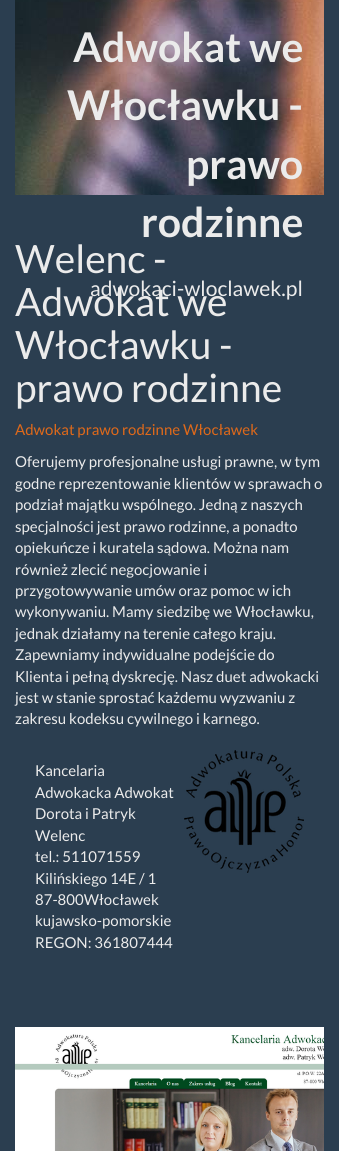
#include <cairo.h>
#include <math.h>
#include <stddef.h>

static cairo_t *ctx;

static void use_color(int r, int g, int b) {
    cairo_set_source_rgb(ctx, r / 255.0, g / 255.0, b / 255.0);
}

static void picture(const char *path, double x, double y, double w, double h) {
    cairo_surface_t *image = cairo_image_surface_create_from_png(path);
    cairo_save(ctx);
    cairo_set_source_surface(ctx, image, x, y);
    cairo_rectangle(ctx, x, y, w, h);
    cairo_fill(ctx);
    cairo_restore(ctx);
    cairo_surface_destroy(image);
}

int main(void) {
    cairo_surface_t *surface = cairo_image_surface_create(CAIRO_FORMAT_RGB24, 339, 1151);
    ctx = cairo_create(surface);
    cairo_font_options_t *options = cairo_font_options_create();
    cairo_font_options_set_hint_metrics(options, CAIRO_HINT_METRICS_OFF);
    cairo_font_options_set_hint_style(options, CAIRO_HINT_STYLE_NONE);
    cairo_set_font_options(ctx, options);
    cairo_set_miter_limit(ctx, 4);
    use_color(43, 62, 80);
    cairo_paint(ctx);
    picture("img1.png", 15, 0, 309, 195);
    cairo_select_font_face(ctx, "Lato", CAIRO_FONT_SLANT_NORMAL, CAIRO_FONT_WEIGHT_BOLD);
    cairo_set_font_size(ctx, 41);
    use_color(235, 235, 235);
    cairo_move_to(ctx, 73, 62);
    cairo_show_text(ctx, "Adwokat we");
    cairo_move_to(ctx, 67, 120);
    cairo_show_text(ctx, "Włocławku -");
    cairo_move_to(ctx, 186, 179);
    cairo_show_text(ctx, "prawo");
    cairo_move_to(ctx, 141, 237);
    cairo_show_text(ctx, "rodzinne");
    cairo_select_font_face(ctx, "Lato", CAIRO_FONT_SLANT_NORMAL, CAIRO_FONT_WEIGHT_NORMAL);
    cairo_set_font_size(ctx, 21);
    cairo_move_to(ctx, 90, 296);
    cairo_show_text(ctx, "adwokaci-wloclawek.pl");
    cairo_set_font_size(ctx, 39);
    cairo_move_to(ctx, 15, 273);
    cairo_show_text(ctx, "Welenc -");
    cairo_move_to(ctx, 15, 316);
    cairo_show_text(ctx, "Adwokat we");
    cairo_move_to(ctx, 15, 359);
    cairo_show_text(ctx, "Włocławku -");
    cairo_move_to(ctx, 15, 402);
    cairo_show_text(ctx, "prawo rodzinne");
    cairo_set_font_size(ctx, 15);
    use_color(223, 105, 26);
    cairo_move_to(ctx, 15, 435);
    cairo_show_text(ctx, "Adwokat prawo rodzinne Włocławek");
    use_color(235, 235, 235);
    cairo_move_to(ctx, 15, 467);
    cairo_show_text(ctx, "Oferujemy profesjonalne usługi prawne, w tym");
    cairo_move_to(ctx, 15, 489);
    cairo_show_text(ctx, "godne reprezentowanie klientów w sprawach o");
    cairo_move_to(ctx, 15, 510);
    cairo_show_text(ctx, "podział majątku wspólnego. Jedną z naszych");
    cairo_move_to(ctx, 15, 532);
    cairo_show_text(ctx, "specjalności jest prawo rodzinne, a ponadto");
    cairo_move_to(ctx, 15, 553);
    cairo_show_text(ctx, "opiekuńcze i kuratela sądowa. Można nam");
    cairo_move_to(ctx, 15, 575);
    cairo_show_text(ctx, "również zlecić negocjowanie i");
    cairo_move_to(ctx, 15, 596);
    cairo_show_text(ctx, "przygotowywanie umów oraz pomoc w ich");
    cairo_move_to(ctx, 15, 617);
    cairo_show_text(ctx, "wykonywaniu. Mamy siedzibę we Włocławku,");
    cairo_move_to(ctx, 15, 639);
    cairo_show_text(ctx, "jednak działamy na terenie całego kraju.");
    cairo_move_to(ctx, 15, 660);
    cairo_show_text(ctx, "Zapewniamy indywidualne podejście do");
    cairo_move_to(ctx, 15, 682);
    cairo_show_text(ctx, "Klienta i pełną dyskrecję. Nasz duet adwokacki");
    cairo_move_to(ctx, 15, 703);
    cairo_show_text(ctx, "jest w stanie sprostać każdemu wyzwaniu z");
    cairo_move_to(ctx, 15, 724);
    cairo_show_text(ctx, "zakresu kodeksu cywilnego i karnego.");
    cairo_move_to(ctx, 35, 776);
    cairo_show_text(ctx, "Kancelaria");
    cairo_move_to(ctx, 35, 798);
    cairo_show_text(ctx, "Adwokacka Adwokat");
    cairo_move_to(ctx, 35, 819);
    cairo_show_text(ctx, "Dorota i Patryk");
    cairo_move_to(ctx, 35, 841);
    cairo_show_text(ctx, "Welenc");
    picture("img2.png", 184, 750, 120, 123);
    cairo_move_to(ctx, 35, 862);
    cairo_show_text(ctx, "tel.: 511071559");
    cairo_move_to(ctx, 35, 884);
    cairo_show_text(ctx, "Kilińskiego 14E / 1");
    cairo_move_to(ctx, 35, 905);
    cairo_show_text(ctx, "87-800Włocławek");
    cairo_move_to(ctx, 35, 926);
    cairo_show_text(ctx, "kujawsko-pomorskie");
    cairo_move_to(ctx, 35, 948);
    cairo_show_text(ctx, "REGON: 361807444");
    picture("img3.png", 15, 1027, 309, 124);
    cairo_surface_write_to_png(surface, "result.png");
    cairo_font_options_destroy(options);
    cairo_destroy(ctx);
    cairo_surface_destroy(surface);
    return 0;
}
